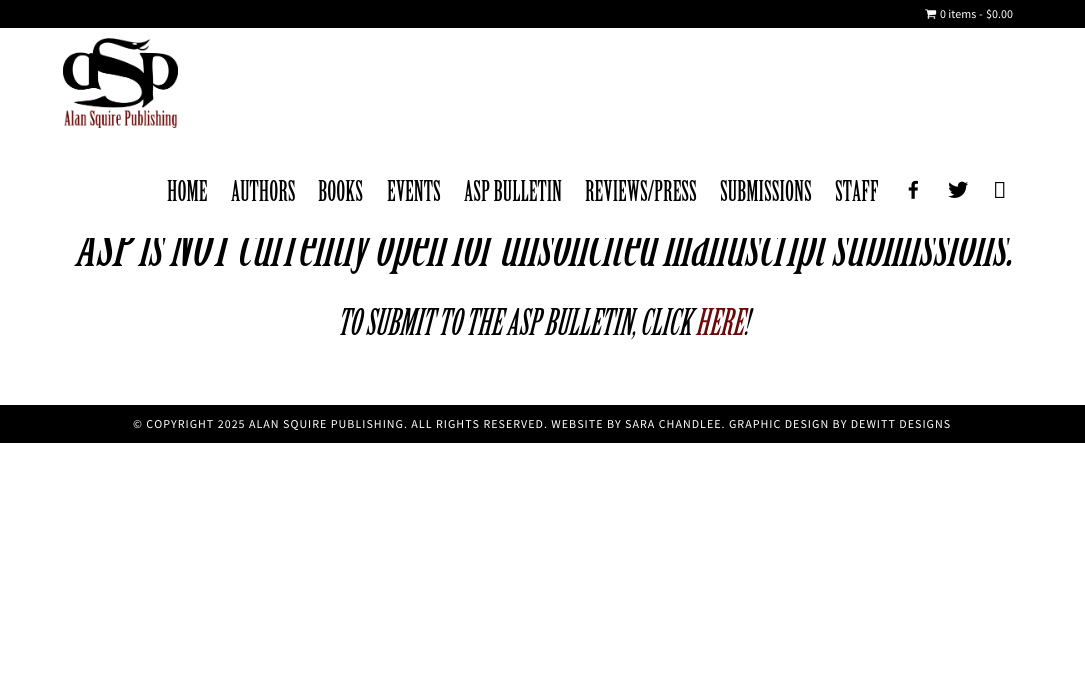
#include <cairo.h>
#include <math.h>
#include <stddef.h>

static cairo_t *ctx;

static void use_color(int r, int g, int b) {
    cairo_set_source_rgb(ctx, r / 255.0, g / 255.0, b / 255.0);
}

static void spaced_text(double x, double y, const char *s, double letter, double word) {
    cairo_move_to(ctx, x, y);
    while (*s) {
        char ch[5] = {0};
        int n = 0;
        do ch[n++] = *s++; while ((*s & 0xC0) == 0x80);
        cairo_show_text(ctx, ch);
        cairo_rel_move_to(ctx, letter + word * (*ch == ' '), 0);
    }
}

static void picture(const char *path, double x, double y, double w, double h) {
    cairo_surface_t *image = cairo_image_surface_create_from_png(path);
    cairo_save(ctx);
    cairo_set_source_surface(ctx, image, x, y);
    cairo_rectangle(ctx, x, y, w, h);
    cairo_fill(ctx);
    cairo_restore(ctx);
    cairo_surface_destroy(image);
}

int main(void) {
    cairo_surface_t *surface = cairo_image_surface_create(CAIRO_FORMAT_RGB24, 1085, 700);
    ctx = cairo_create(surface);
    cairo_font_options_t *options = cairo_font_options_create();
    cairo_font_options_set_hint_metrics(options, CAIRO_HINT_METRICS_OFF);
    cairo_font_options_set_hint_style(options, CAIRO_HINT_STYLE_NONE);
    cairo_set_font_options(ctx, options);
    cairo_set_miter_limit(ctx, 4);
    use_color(255, 255, 255);
    cairo_paint(ctx);
    use_color(0, 0, 0);
    cairo_rectangle(ctx, 0, 0, 1085, 28);
    cairo_fill(ctx);
    picture("img1.png", 925, 9, 12, 10);
    cairo_select_font_face(ctx, "Source Sans Pro", CAIRO_FONT_SLANT_NORMAL, CAIRO_FONT_WEIGHT_NORMAL);
    cairo_set_font_size(ctx, 12);
    use_color(255, 255, 255);
    cairo_move_to(ctx, 940, 18);
    cairo_show_text(ctx, "0 items");
    cairo_move_to(ctx, 979, 18);
    cairo_show_text(ctx, "-");
    cairo_move_to(ctx, 986, 18);
    cairo_show_text(ctx, "$0.00");
    cairo_select_font_face(ctx, "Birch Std", CAIRO_FONT_SLANT_ITALIC, CAIRO_FONT_WEIGHT_NORMAL);
    cairo_set_font_size(ctx, 60);
    use_color(0, 0, 0);
    cairo_move_to(ctx, 74, 266);
    cairo_show_text(ctx, "ASP is NOT currently open for unsolicited manuscript submissions.");
    use_color(255, 255, 255);
    cairo_rectangle(ctx, 87, 221, 925, 17);
    cairo_fill(ctx);
    picture("img2.png", 63, 38, 115, 90);
    cairo_select_font_face(ctx, "Birch Std", CAIRO_FONT_SLANT_NORMAL, CAIRO_FONT_WEIGHT_NORMAL);
    cairo_set_font_size(ctx, 28);
    use_color(0, 0, 0);
    cairo_move_to(ctx, 167, 201);
    cairo_show_text(ctx, "HOME");
    cairo_move_to(ctx, 231, 201);
    cairo_show_text(ctx, "AUTHORS");
    cairo_move_to(ctx, 318, 201);
    cairo_show_text(ctx, "BOOKS");
    cairo_move_to(ctx, 387, 201);
    cairo_show_text(ctx, "EVENTS");
    cairo_move_to(ctx, 464, 201);
    cairo_show_text(ctx, "ASP BULLETIN");
    cairo_move_to(ctx, 585, 201);
    cairo_show_text(ctx, "REVIEWS/PRESS");
    cairo_move_to(ctx, 720, 201);
    cairo_show_text(ctx, "SUBMISSIONS");
    cairo_move_to(ctx, 835, 201);
    cairo_show_text(ctx, "STAFF");
    picture("img3.png", 908, 180, 10, 19);
    picture("img4.png", 948, 181, 20, 17);
    picture("img5.png", 995, 182, 10, 16);
    cairo_select_font_face(ctx, "Birch Std", CAIRO_FONT_SLANT_ITALIC, CAIRO_FONT_WEIGHT_NORMAL);
    cairo_set_font_size(ctx, 36);
    cairo_move_to(ctx, 337, 335);
    cairo_show_text(ctx, "TO SUBMIT TO THE ASP BULLETIN, CLICK");
    use_color(106, 10, 10);
    cairo_move_to(ctx, 695, 335);
    cairo_show_text(ctx, "HERE");
    use_color(0, 0, 0);
    cairo_move_to(ctx, 743, 335);
    cairo_show_text(ctx, "!");
    cairo_rectangle(ctx, 0, 405, 1085, 38);
    cairo_fill(ctx);
    cairo_select_font_face(ctx, "Source Sans Pro", CAIRO_FONT_SLANT_NORMAL, CAIRO_FONT_WEIGHT_NORMAL);
    cairo_set_font_size(ctx, 12);
    use_color(255, 255, 255);
    spaced_text(133, 428, "© COPYRIGHT 2025 ALAN SQUIRE PUBLISHING. ALL RIGHTS RESERVED. WEBSITE BY SARA CHANDLEE. GRAPHIC DESIGN BY DEWITT DESIGNS", 1, 0);
    cairo_surface_write_to_png(surface, "result.png");
    cairo_font_options_destroy(options);
    cairo_destroy(ctx);
    cairo_surface_destroy(surface);
    return 0;
}
